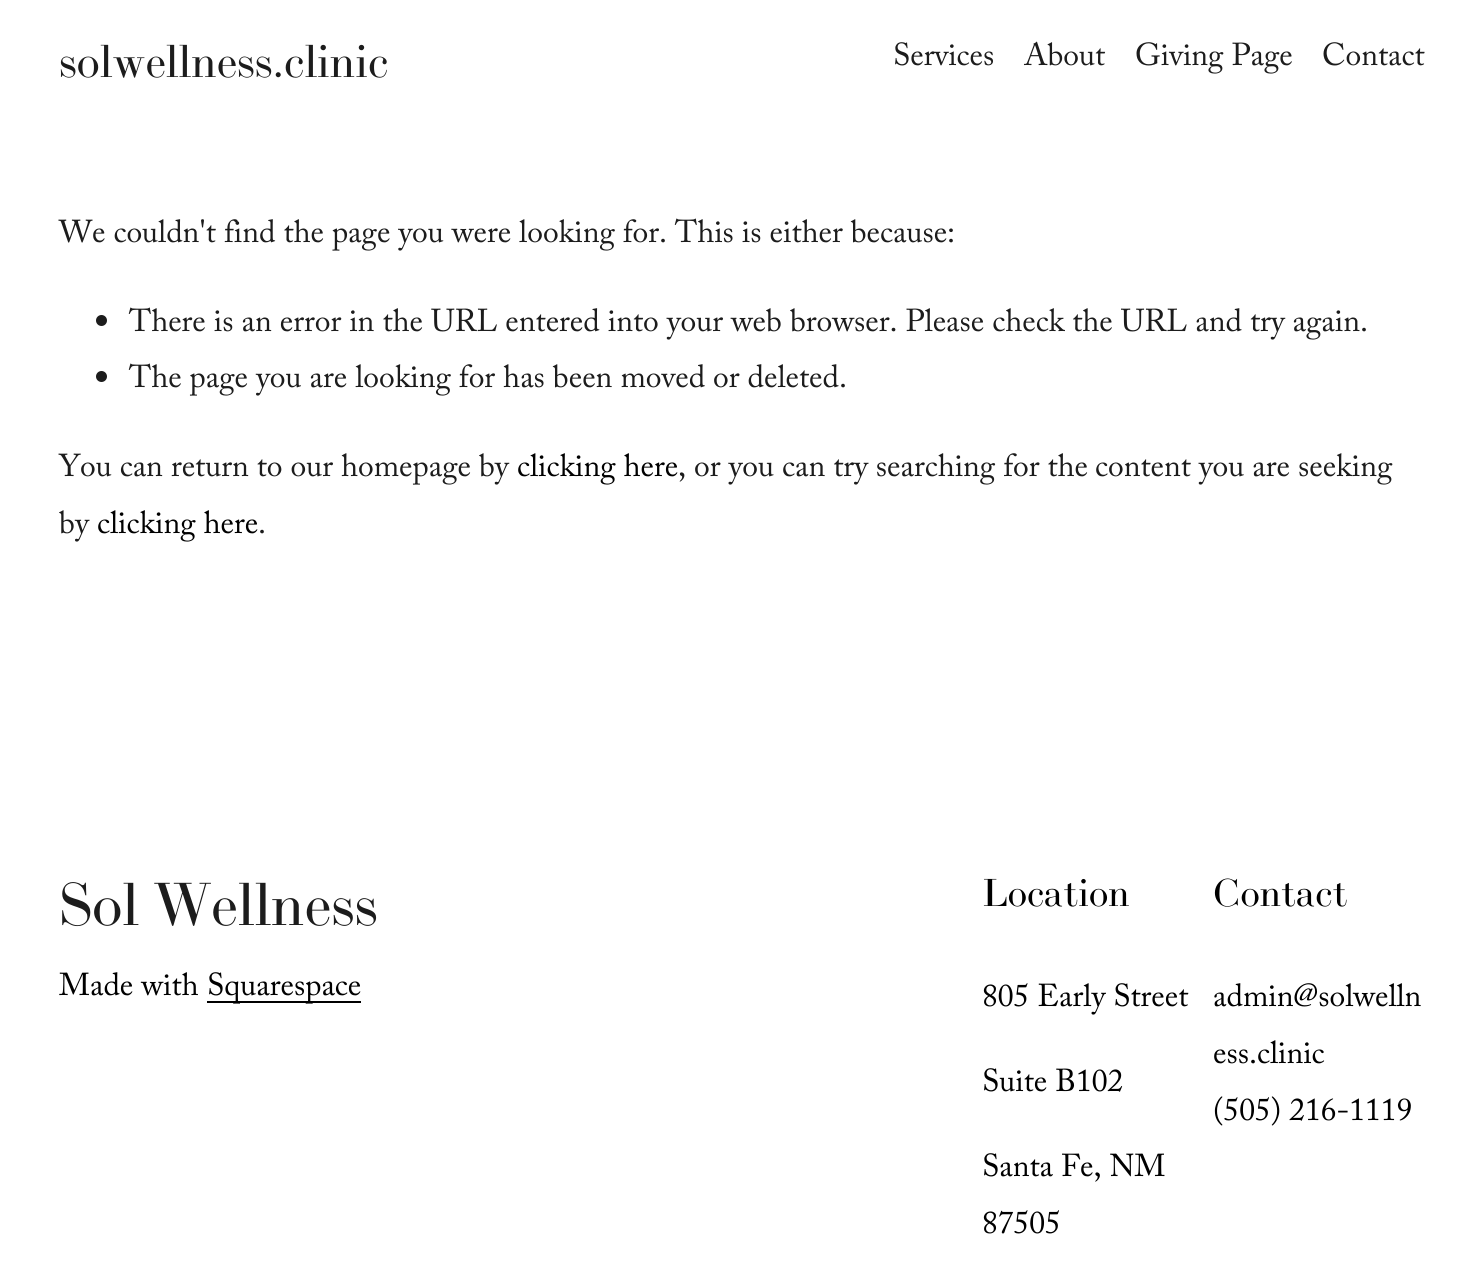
#include <cairo.h>
#include <math.h>
#include <stddef.h>

static cairo_t *ctx;

static void use_color(int r, int g, int b) {
    cairo_set_source_rgb(ctx, r / 255.0, g / 255.0, b / 255.0);
}

int main(void) {
    cairo_surface_t *surface = cairo_image_surface_create(CAIRO_FORMAT_RGB24, 1484, 1285);
    ctx = cairo_create(surface);
    cairo_font_options_t *options = cairo_font_options_create();
    cairo_font_options_set_hint_metrics(options, CAIRO_HINT_METRICS_OFF);
    cairo_font_options_set_hint_style(options, CAIRO_HINT_STYLE_NONE);
    cairo_set_font_options(ctx, options);
    cairo_set_miter_limit(ctx, 4);
    use_color(255, 255, 255);
    cairo_paint(ctx);
    cairo_select_font_face(ctx, "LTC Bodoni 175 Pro", CAIRO_FONT_SLANT_NORMAL, CAIRO_FONT_WEIGHT_NORMAL);
    cairo_set_font_size(ctx, 45.75);
    use_color(28, 28, 28);
    cairo_move_to(ctx, 59, 77);
    cairo_show_text(ctx, "solwellness.clinic");
    cairo_select_font_face(ctx, "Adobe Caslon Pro", CAIRO_FONT_SLANT_NORMAL, CAIRO_FONT_WEIGHT_NORMAL);
    cairo_set_font_size(ctx, 31.55);
    cairo_move_to(ctx, 893, 65);
    cairo_show_text(ctx, "Services");
    cairo_move_to(ctx, 1024, 65);
    cairo_show_text(ctx, "About");
    cairo_move_to(ctx, 1135, 65);
    cairo_show_text(ctx, "Giving Page");
    cairo_move_to(ctx, 1322, 65);
    cairo_show_text(ctx, "Contact");
    cairo_move_to(ctx, 59, 242);
    cairo_show_text(ctx, "We couldn't find the page you were looking for. This is either because:");
    cairo_new_path(ctx);
    cairo_arc(ctx, 101.5, 320.5, 5.5, 0, 2 * M_PI);
    cairo_fill(ctx);
    cairo_move_to(ctx, 129, 331);
    cairo_show_text(ctx, "There is an error in the URL entered into your web browser. Please check the URL and try again.");
    cairo_new_path(ctx);
    cairo_arc(ctx, 101.5, 376.5, 5.5, 0, 2 * M_PI);
    cairo_fill(ctx);
    cairo_move_to(ctx, 129, 387);
    cairo_show_text(ctx, "The page you are looking for has been moved or deleted.");
    cairo_move_to(ctx, 59, 476);
    cairo_show_text(ctx, "You can return to our homepage by");
    use_color(0, 0, 0);
    cairo_move_to(ctx, 517, 476);
    cairo_show_text(ctx, "clicking here");
    use_color(28, 28, 28);
    cairo_move_to(ctx, 678, 476);
    cairo_show_text(ctx, ", or you can try searching for the");
    cairo_move_to(ctx, 1095, 476);
    cairo_show_text(ctx, "content you are seeking");
    cairo_move_to(ctx, 59, 533);
    cairo_show_text(ctx, "by");
    use_color(0, 0, 0);
    cairo_move_to(ctx, 97, 533);
    cairo_show_text(ctx, "clicking here");
    use_color(28, 28, 28);
    cairo_move_to(ctx, 258, 533);
    cairo_show_text(ctx, ".");
    cairo_select_font_face(ctx, "LTC Bodoni 175 Pro", CAIRO_FONT_SLANT_NORMAL, CAIRO_FONT_WEIGHT_NORMAL);
    cairo_set_font_size(ctx, 60);
    cairo_move_to(ctx, 59, 925);
    cairo_show_text(ctx, "Sol Wellness");
    cairo_set_font_size(ctx, 38.5);
    use_color(0, 0, 0);
    cairo_move_to(ctx, 982, 906);
    cairo_show_text(ctx, "Location");
    cairo_select_font_face(ctx, "Adobe Caslon Pro", CAIRO_FONT_SLANT_NORMAL, CAIRO_FONT_WEIGHT_NORMAL);
    cairo_set_font_size(ctx, 31.55);
    cairo_move_to(ctx, 982, 1006);
    cairo_show_text(ctx, "805 Early Street");
    cairo_move_to(ctx, 982, 1091);
    cairo_show_text(ctx, "Suite B102");
    cairo_move_to(ctx, 982, 1176);
    cairo_show_text(ctx, "Santa Fe, NM");
    cairo_move_to(ctx, 982, 1233);
    cairo_show_text(ctx, "87505");
    cairo_select_font_face(ctx, "LTC Bodoni 175 Pro", CAIRO_FONT_SLANT_NORMAL, CAIRO_FONT_WEIGHT_NORMAL);
    cairo_set_font_size(ctx, 38.5);
    cairo_move_to(ctx, 1213, 906);
    cairo_show_text(ctx, "Contact");
    cairo_select_font_face(ctx, "Adobe Caslon Pro", CAIRO_FONT_SLANT_NORMAL, CAIRO_FONT_WEIGHT_NORMAL);
    cairo_set_font_size(ctx, 31.55);
    cairo_move_to(ctx, 1213, 1006);
    cairo_show_text(ctx, "admin@solwelln");
    cairo_move_to(ctx, 1213, 1063);
    cairo_show_text(ctx, "ess.clinic");
    cairo_move_to(ctx, 1213, 1120);
    cairo_show_text(ctx, "(505) 216-1119");
    cairo_move_to(ctx, 59, 995);
    cairo_show_text(ctx, "Made with");
    cairo_rectangle(ctx, 207, 1001, 154, 2);
    cairo_fill(ctx);
    cairo_move_to(ctx, 207, 995);
    cairo_show_text(ctx, "Squarespace");
    cairo_surface_write_to_png(surface, "result.png");
    cairo_font_options_destroy(options);
    cairo_destroy(ctx);
    cairo_surface_destroy(surface);
    return 0;
}
